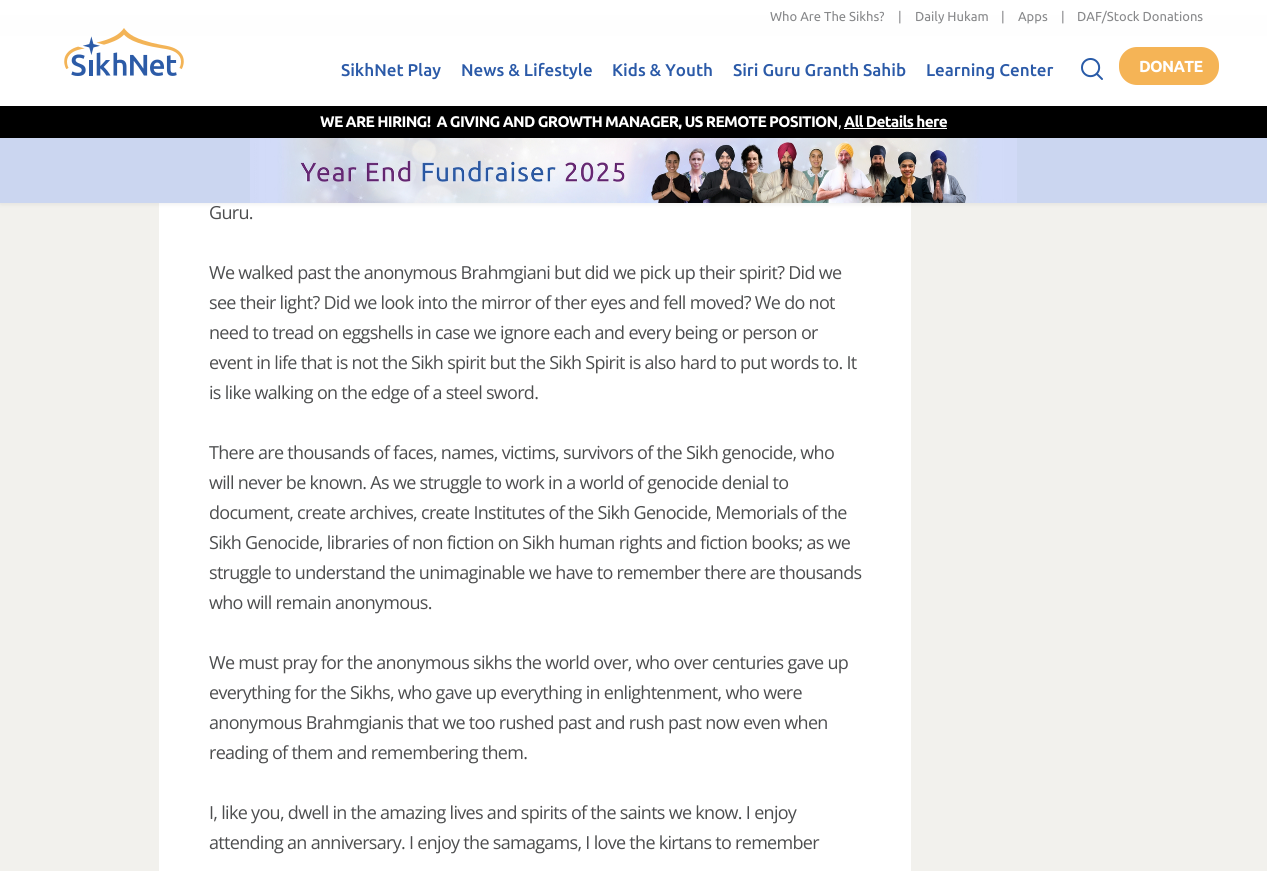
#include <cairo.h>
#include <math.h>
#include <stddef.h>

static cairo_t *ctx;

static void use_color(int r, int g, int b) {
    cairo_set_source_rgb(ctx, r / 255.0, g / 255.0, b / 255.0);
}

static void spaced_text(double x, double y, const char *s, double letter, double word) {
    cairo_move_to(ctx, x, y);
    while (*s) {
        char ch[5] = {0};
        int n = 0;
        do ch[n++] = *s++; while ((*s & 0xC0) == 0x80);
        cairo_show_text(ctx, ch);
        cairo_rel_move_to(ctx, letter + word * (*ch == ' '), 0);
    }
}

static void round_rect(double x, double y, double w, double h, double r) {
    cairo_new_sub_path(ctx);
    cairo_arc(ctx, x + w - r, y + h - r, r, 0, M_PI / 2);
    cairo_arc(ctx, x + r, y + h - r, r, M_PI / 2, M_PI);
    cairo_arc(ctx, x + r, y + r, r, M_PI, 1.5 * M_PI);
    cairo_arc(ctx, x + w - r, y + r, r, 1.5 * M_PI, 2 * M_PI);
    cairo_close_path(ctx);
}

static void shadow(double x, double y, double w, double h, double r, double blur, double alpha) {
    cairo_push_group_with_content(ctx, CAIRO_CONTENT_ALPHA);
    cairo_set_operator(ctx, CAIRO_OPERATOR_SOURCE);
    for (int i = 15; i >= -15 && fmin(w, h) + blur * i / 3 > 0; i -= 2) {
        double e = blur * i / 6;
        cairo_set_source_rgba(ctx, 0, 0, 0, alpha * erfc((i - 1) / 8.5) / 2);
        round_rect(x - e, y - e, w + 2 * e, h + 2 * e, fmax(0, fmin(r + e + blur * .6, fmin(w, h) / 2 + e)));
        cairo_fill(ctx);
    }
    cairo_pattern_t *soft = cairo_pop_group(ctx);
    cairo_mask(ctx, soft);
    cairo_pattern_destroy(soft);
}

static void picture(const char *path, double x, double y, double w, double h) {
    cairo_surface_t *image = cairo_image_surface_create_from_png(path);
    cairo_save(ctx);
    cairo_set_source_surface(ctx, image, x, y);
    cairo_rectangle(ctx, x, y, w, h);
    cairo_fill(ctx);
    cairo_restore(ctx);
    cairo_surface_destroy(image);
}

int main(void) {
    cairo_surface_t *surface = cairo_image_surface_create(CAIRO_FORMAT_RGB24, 1267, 871);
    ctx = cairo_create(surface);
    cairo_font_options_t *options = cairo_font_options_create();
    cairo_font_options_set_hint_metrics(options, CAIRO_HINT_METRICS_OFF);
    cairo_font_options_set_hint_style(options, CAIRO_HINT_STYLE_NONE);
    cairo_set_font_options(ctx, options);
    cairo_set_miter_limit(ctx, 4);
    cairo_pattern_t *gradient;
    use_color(242, 241, 237);
    cairo_paint(ctx);
    use_color(255, 255, 255);
    cairo_rectangle(ctx, 159, 203, 752, 668);
    cairo_fill(ctx);
    use_color(0, 0, 0);
    shadow(0, 1, 1267, 203, 0, 2.5, 0.07);
    gradient = cairo_pattern_create_linear(634, 0, 634, 203);
    cairo_pattern_add_color_stop_rgba(gradient, 0, 1, 1, 1, 1);
    cairo_pattern_add_color_stop_rgba(gradient, 1, 0.973, 0.973, 0.973, 1);
    cairo_set_source(ctx, gradient);
    cairo_pattern_destroy(gradient);
    cairo_rectangle(ctx, 0, 0, 1267, 36);
    cairo_fill(ctx);
    cairo_select_font_face(ctx, "Ubuntu", CAIRO_FONT_SLANT_NORMAL, CAIRO_FONT_WEIGHT_NORMAL);
    cairo_set_font_size(ctx, 13);
    use_color(135, 136, 138);
    cairo_move_to(ctx, 770, 21);
    cairo_show_text(ctx, "Who Are The Sikhs?");
    cairo_move_to(ctx, 898, 21);
    cairo_show_text(ctx, "|");
    cairo_move_to(ctx, 915, 21);
    cairo_show_text(ctx, "Daily Hukam");
    cairo_move_to(ctx, 1001, 21);
    cairo_show_text(ctx, "|");
    cairo_move_to(ctx, 1018, 21);
    cairo_show_text(ctx, "Apps");
    cairo_move_to(ctx, 1061, 21);
    cairo_show_text(ctx, "|");
    cairo_move_to(ctx, 1077, 21);
    cairo_show_text(ctx, "DAF/Stock Donations");
    use_color(255, 255, 255);
    cairo_rectangle(ctx, 0, 36, 1267, 70);
    cairo_fill(ctx);
    picture("img1.png", 64, 28, 120, 48);
    cairo_select_font_face(ctx, "Ubuntu Medium", CAIRO_FONT_SLANT_NORMAL, CAIRO_FONT_WEIGHT_NORMAL);
    cairo_set_font_size(ctx, 17);
    use_color(43, 90, 168);
    cairo_move_to(ctx, 341, 76);
    cairo_show_text(ctx, "SikhNet Play");
    cairo_move_to(ctx, 461, 76);
    cairo_show_text(ctx, "News & Lifestyle");
    cairo_move_to(ctx, 612, 76);
    cairo_show_text(ctx, "Kids & Youth");
    cairo_move_to(ctx, 733, 76);
    cairo_show_text(ctx, "Siri Guru Granth Sahib");
    cairo_move_to(ctx, 926, 76);
    cairo_show_text(ctx, "Learning Center");
    picture("img2.png", 1081, 58, 22, 22);
    use_color(245, 180, 86);
    round_rect(1119, 47, 100, 38, 18);
    cairo_fill(ctx);
    cairo_select_font_face(ctx, "Ubuntu", CAIRO_FONT_SLANT_NORMAL, CAIRO_FONT_WEIGHT_BOLD);
    cairo_set_font_size(ctx, 16);
    use_color(255, 255, 255);
    spaced_text(1139, 72, "DONATE", -0.7, 0);
    use_color(0, 0, 0);
    cairo_rectangle(ctx, 0, 106, 1267, 32);
    cairo_fill(ctx);
    cairo_set_font_size(ctx, 15.4);
    use_color(255, 255, 255);
    spaced_text(320, 127, "WE ARE HIRING!  A GIVING AND GROWTH MANAGER, US REMOTE POSITION", -0.7, 0);
    cairo_select_font_face(ctx, "Ubuntu", CAIRO_FONT_SLANT_NORMAL, CAIRO_FONT_WEIGHT_NORMAL);
    spaced_text(838, 127, ",", -0.7, 0);
    cairo_select_font_face(ctx, "Ubuntu", CAIRO_FONT_SLANT_NORMAL, CAIRO_FONT_WEIGHT_BOLD);
    spaced_text(844, 127, "All Details here", -0.7, 0);
    cairo_rectangle(ctx, 844, 128, 103, 1);
    cairo_fill(ctx);
    use_color(203, 214, 240);
    cairo_rectangle(ctx, 0, 138, 1267, 65);
    cairo_fill(ctx);
    picture("img3.png", 250, 138, 767, 65);
    cairo_select_font_face(ctx, "Open Sans", CAIRO_FONT_SLANT_NORMAL, CAIRO_FONT_WEIGHT_NORMAL);
    cairo_set_font_size(ctx, 18);
    use_color(77, 78, 79);
    spaced_text(209, 219, "Guru.", -0.7, 0);
    spaced_text(209, 279, "We walked past the anonymous Brahmgiani but did we pick up their spirit? Did we", -0.7, 0);
    spaced_text(209, 309, "see their light? Did we look into the mirror of ther eyes and fell moved? We do not", -0.7, 0);
    spaced_text(209, 339, "need to tread on eggshells in case we ignore each and every being or person or", -0.7, 0);
    spaced_text(209, 369, "event in life that is not the Sikh spirit but the Sikh Spirit is also hard to put words to. It", -0.7, 0);
    spaced_text(209, 399, "is like walking on the edge of a steel sword.", -0.7, 0);
    spaced_text(209, 459, "There are thousands of faces, names, victims, survivors of the Sikh genocide, who", -0.7, 0);
    spaced_text(209, 489, "will never be known. As we struggle to work in a world of genocide denial to", -0.7, 0);
    spaced_text(209, 519, "document, create archives, create Institutes of the Sikh Genocide, Memorials of the", -0.7, 0);
    spaced_text(209, 549, "Sikh Genocide, libraries of non fiction on Sikh human rights and fiction books; as we", -0.7, 0);
    spaced_text(209, 579, "struggle to understand the unimaginable we have to remember there are thousands", -0.7, 0);
    spaced_text(209, 609, "who will remain anonymous.", -0.7, 0);
    spaced_text(209, 669, "We must pray for the anonymous sikhs the world over, who over centuries gave up", -0.7, 0);
    spaced_text(209, 699, "everything for the Sikhs, who gave up everything in enlightenment, who were", -0.7, 0);
    spaced_text(209, 729, "anonymous Brahmgianis that we too rushed past and rush past now even when", -0.7, 0);
    spaced_text(209, 759, "reading of them and remembering them.", -0.7, 0);
    spaced_text(209, 819, "I, like you, dwell in the amazing lives and spirits of the saints we know. I enjoy", -0.7, 0);
    spaced_text(209, 849, "attending an anniversary. I enjoy the samagams, I love the kirtans to remember", -0.7, 0);
    cairo_surface_write_to_png(surface, "result.png");
    cairo_font_options_destroy(options);
    cairo_destroy(ctx);
    cairo_surface_destroy(surface);
    return 0;
}
